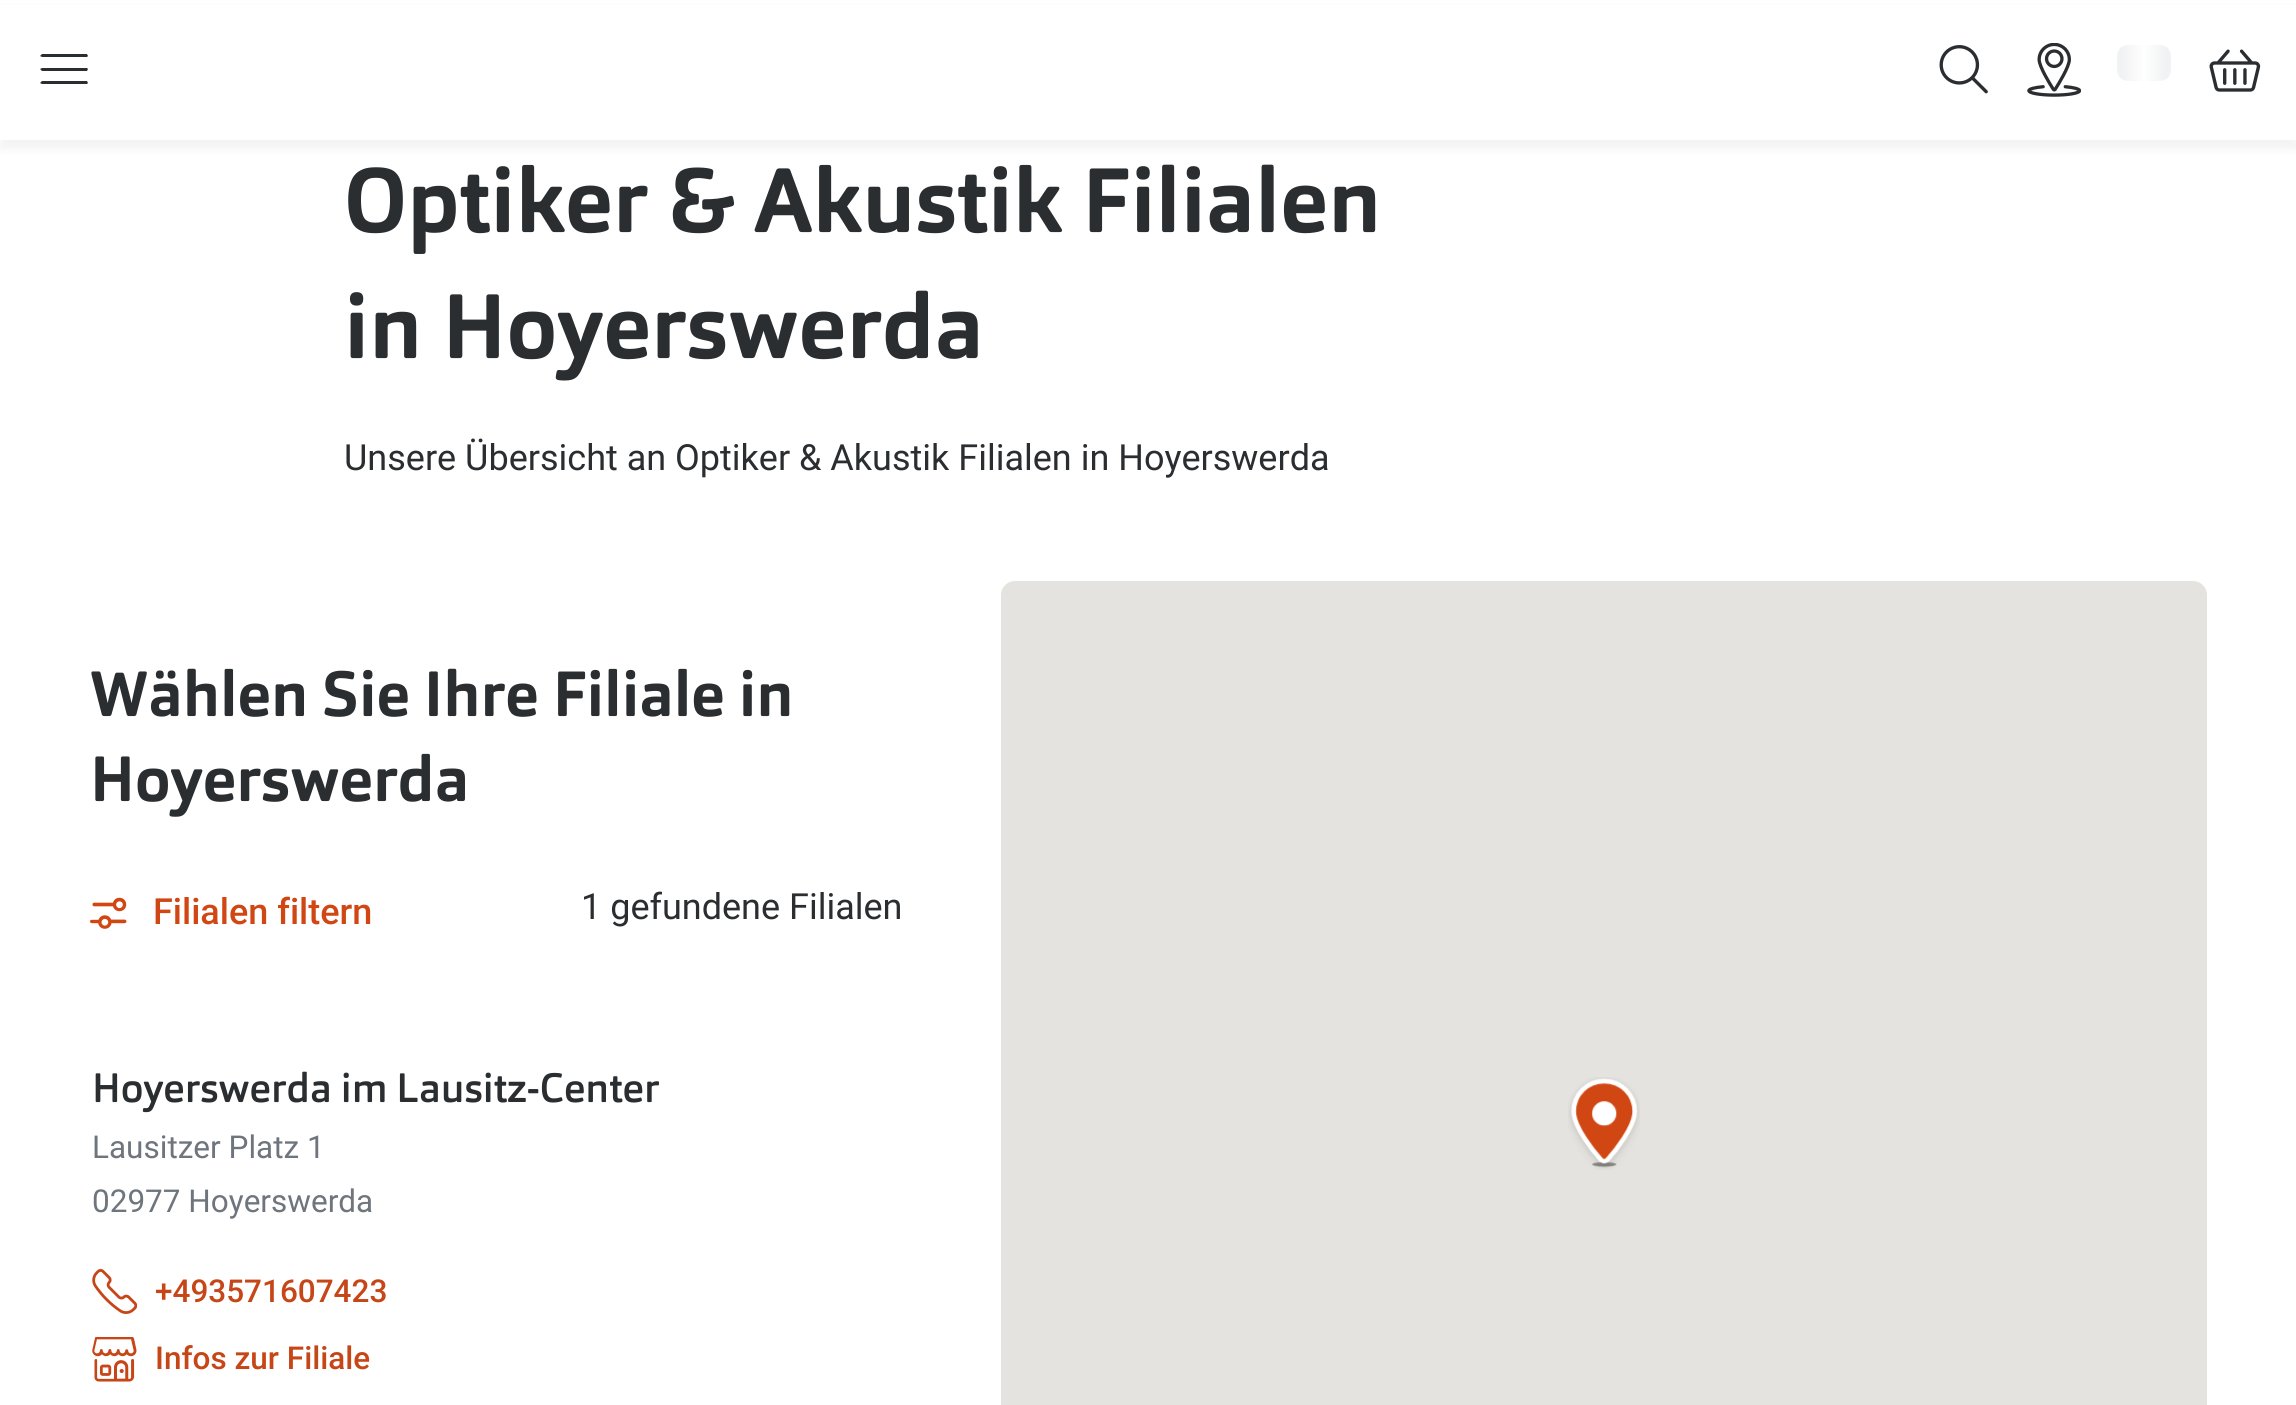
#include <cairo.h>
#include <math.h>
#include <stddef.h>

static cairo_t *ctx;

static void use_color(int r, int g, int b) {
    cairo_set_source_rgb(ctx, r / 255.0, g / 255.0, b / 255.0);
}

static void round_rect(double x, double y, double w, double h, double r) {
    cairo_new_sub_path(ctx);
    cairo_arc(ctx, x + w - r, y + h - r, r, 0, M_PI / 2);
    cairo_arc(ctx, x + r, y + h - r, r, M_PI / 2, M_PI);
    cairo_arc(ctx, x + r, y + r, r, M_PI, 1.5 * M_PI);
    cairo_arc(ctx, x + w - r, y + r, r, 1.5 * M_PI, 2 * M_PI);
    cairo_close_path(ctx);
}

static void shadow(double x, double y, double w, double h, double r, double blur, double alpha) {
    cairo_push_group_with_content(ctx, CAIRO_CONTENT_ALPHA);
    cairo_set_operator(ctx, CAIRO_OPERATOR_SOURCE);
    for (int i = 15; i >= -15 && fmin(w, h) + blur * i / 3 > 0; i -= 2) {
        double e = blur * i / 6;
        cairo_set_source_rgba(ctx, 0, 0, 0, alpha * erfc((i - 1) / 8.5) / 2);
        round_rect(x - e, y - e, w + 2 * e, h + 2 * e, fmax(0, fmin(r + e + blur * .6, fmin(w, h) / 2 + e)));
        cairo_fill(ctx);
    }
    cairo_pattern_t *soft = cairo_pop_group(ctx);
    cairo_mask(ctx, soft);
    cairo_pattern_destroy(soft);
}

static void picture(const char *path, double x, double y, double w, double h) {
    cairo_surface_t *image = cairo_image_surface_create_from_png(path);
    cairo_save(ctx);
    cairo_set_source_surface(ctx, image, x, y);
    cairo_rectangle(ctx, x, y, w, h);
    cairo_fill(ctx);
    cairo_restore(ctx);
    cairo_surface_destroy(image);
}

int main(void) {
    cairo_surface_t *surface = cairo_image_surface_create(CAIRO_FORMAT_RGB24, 2296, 1405);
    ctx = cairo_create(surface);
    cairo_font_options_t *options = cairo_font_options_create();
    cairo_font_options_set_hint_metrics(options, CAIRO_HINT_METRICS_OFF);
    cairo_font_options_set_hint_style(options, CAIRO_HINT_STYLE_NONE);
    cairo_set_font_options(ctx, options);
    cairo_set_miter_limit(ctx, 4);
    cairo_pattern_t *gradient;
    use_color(255, 255, 255);
    cairo_paint(ctx);
    use_color(0, 0, 0);
    shadow(0, 9, 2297, 140, 0, 4.5, 0.05);
    use_color(255, 255, 255);
    cairo_rectangle(ctx, 0, 5, 2296, 135);
    cairo_fill(ctx);
    use_color(43, 46, 49);
    cairo_set_fill_rule(ctx, CAIRO_FILL_RULE_EVEN_ODD);
    cairo_new_path(ctx);
    cairo_move_to(ctx, 40, 56);
    cairo_line_to(ctx, 42, 54);
    cairo_line_to(ctx, 87, 54);
    cairo_line_to(ctx, 88, 56);
    cairo_line_to(ctx, 87, 57);
    cairo_line_to(ctx, 42, 57);
    cairo_close_path(ctx);
    cairo_move_to(ctx, 40, 69);
    cairo_line_to(ctx, 42, 68);
    cairo_line_to(ctx, 87, 68);
    cairo_line_to(ctx, 88, 69);
    cairo_line_to(ctx, 87, 71);
    cairo_line_to(ctx, 42, 71);
    cairo_close_path(ctx);
    cairo_move_to(ctx, 40, 83);
    cairo_line_to(ctx, 42, 81);
    cairo_line_to(ctx, 87, 81);
    cairo_line_to(ctx, 88, 83);
    cairo_line_to(ctx, 87, 84);
    cairo_line_to(ctx, 42, 84);
    cairo_close_path(ctx);
    cairo_fill(ctx);
    picture("img1.png", 1939, 45, 49, 49);
    picture("img2.png", 2027, 43, 54, 54);
    gradient = cairo_pattern_create_linear(2117, 45, 2171, 45);
    cairo_pattern_add_color_stop_rgba(gradient, 0.1, 0.945, 0.949, 0.953, 1);
    cairo_pattern_add_color_stop_rgba(gradient, 0.5, 1, 1, 1, 1);
    cairo_pattern_add_color_stop_rgba(gradient, 0.9, 0.945, 0.949, 0.953, 1);
    cairo_set_source(ctx, gradient);
    cairo_pattern_destroy(gradient);
    round_rect(2117, 45, 54, 36, 11);
    cairo_fill(ctx);
    picture("img3.png", 2209, 49, 52, 43);
    cairo_select_font_face(ctx, "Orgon", CAIRO_FONT_SLANT_NORMAL, CAIRO_FONT_WEIGHT_BOLD);
    cairo_set_font_size(ctx, 90);
    use_color(43, 46, 49);
    cairo_move_to(ctx, 344, 232);
    cairo_show_text(ctx, "Optiker & Akustik Filialen");
    cairo_move_to(ctx, 344, 358);
    cairo_show_text(ctx, "in Hoyerswerda");
    cairo_select_font_face(ctx, "Roboto", CAIRO_FONT_SLANT_NORMAL, CAIRO_FONT_WEIGHT_NORMAL);
    cairo_set_font_size(ctx, 36);
    cairo_move_to(ctx, 344, 470);
    cairo_show_text(ctx, "Unsere Übersicht an Optiker & Akustik Filialen in Hoyerswerda");
    cairo_select_font_face(ctx, "Orgon", CAIRO_FONT_SLANT_NORMAL, CAIRO_FONT_WEIGHT_BOLD);
    cairo_set_font_size(ctx, 63);
    cairo_move_to(ctx, 90, 716);
    cairo_show_text(ctx, "Wählen Sie Ihre Filiale in");
    cairo_move_to(ctx, 90, 801);
    cairo_show_text(ctx, "Hoyerswerda");
    picture("img4.png", 90, 897, 37, 32);
    cairo_select_font_face(ctx, "Roboto Medium", CAIRO_FONT_SLANT_NORMAL, CAIRO_FONT_WEIGHT_NORMAL);
    cairo_set_font_size(ctx, 36);
    use_color(209, 71, 20);
    cairo_move_to(ctx, 153, 924);
    cairo_show_text(ctx, "Filialen filtern");
    cairo_select_font_face(ctx, "Roboto", CAIRO_FONT_SLANT_NORMAL, CAIRO_FONT_WEIGHT_NORMAL);
    use_color(43, 46, 49);
    cairo_move_to(ctx, 581, 919);
    cairo_show_text(ctx, "1 gefundene Filialen");
    cairo_select_font_face(ctx, "Orgon Medium", CAIRO_FONT_SLANT_NORMAL, CAIRO_FONT_WEIGHT_NORMAL);
    cairo_set_font_size(ctx, 40.5);
    cairo_move_to(ctx, 92, 1102);
    cairo_show_text(ctx, "Hoyerswerda im Lausitz-Center");
    cairo_select_font_face(ctx, "Roboto", CAIRO_FONT_SLANT_NORMAL, CAIRO_FONT_WEIGHT_NORMAL);
    cairo_set_font_size(ctx, 31.5);
    use_color(110, 117, 125);
    cairo_move_to(ctx, 92, 1158);
    cairo_show_text(ctx, "Lausitzer Platz 1");
    cairo_move_to(ctx, 92, 1212);
    cairo_show_text(ctx, "02977 Hoyerswerda");
    picture("img5.png", 92, 1269, 45, 45);
    cairo_select_font_face(ctx, "Roboto Medium", CAIRO_FONT_SLANT_NORMAL, CAIRO_FONT_WEIGHT_NORMAL);
    use_color(198, 70, 23);
    cairo_move_to(ctx, 155, 1302);
    cairo_show_text(ctx, "+493571607423");
    picture("img6.png", 92, 1337, 45, 45);
    cairo_move_to(ctx, 155, 1369);
    cairo_show_text(ctx, "Infos zur Filiale");
    use_color(229, 227, 223);
    round_rect(1001, 581, 1206, 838, 14);
    cairo_fill(ctx);
    picture("img7.png", 1568, 1077, 72, 93);
    cairo_surface_write_to_png(surface, "result.png");
    cairo_font_options_destroy(options);
    cairo_destroy(ctx);
    cairo_surface_destroy(surface);
    return 0;
}
